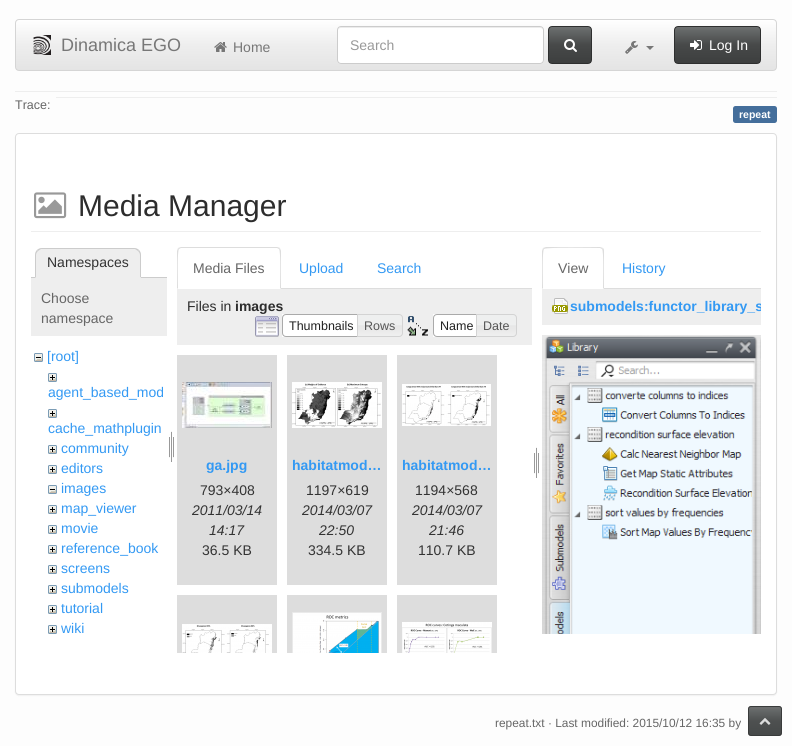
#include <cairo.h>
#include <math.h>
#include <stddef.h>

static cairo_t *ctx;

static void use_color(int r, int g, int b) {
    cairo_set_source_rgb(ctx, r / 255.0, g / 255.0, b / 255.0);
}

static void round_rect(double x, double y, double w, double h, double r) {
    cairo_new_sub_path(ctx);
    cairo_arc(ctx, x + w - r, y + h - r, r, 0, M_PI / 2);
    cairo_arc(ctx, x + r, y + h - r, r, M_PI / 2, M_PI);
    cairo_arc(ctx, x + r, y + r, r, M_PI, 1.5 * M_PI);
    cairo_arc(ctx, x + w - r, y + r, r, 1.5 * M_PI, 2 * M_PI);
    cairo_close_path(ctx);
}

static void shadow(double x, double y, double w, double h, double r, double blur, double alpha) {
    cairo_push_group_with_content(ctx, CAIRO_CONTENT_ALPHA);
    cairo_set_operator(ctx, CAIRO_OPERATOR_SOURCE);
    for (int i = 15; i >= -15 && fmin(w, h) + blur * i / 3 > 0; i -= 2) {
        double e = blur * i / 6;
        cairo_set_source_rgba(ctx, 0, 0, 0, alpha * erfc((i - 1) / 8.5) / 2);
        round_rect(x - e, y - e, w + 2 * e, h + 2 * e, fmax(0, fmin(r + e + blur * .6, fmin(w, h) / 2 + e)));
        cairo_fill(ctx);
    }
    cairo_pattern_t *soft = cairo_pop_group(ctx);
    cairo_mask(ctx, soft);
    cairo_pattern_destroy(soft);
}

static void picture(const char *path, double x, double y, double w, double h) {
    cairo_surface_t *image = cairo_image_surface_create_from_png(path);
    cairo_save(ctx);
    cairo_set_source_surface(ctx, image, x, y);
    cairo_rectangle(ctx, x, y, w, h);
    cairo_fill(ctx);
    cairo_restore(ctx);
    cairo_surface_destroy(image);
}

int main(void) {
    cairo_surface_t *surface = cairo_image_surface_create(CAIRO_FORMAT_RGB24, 792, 746);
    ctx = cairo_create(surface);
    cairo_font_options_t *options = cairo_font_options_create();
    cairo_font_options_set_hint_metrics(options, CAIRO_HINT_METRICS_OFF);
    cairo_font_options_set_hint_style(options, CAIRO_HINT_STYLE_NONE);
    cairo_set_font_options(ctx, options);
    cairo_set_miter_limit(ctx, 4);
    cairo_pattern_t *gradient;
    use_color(253, 253, 253);
    cairo_paint(ctx);
    cairo_save(ctx);
    round_rect(15, 19, 762, 52, 4);
    cairo_clip(ctx);
    gradient = cairo_pattern_create_linear(396, 20, 396, 70);
    cairo_pattern_add_color_stop_rgba(gradient, 0, 1, 1, 1, 1);
    cairo_pattern_add_color_stop_rgba(gradient, 0.5, 0.933, 0.933, 0.933, 1);
    cairo_pattern_add_color_stop_rgba(gradient, 1, 0.894, 0.894, 0.894, 1);
    cairo_set_source(ctx, gradient);
    cairo_pattern_destroy(gradient);
    cairo_rectangle(ctx, 16, 20, 760, 50);
    cairo_fill(ctx);
    cairo_restore(ctx);
    round_rect(15.5, 19.5, 761, 51, 3.5);
    use_color(213, 213, 213);
    cairo_set_line_width(ctx, 1);
    cairo_stroke(ctx);
    picture("img1.png", 33, 35, 18, 20);
    cairo_select_font_face(ctx, "Liberation Sans", CAIRO_FONT_SLANT_NORMAL, CAIRO_FONT_WEIGHT_NORMAL);
    cairo_set_font_size(ctx, 18);
    use_color(119, 119, 119);
    cairo_move_to(ctx, 61, 51);
    cairo_show_text(ctx, "Dinamica EGO");
    picture("img2.png", 214, 42, 13, 10);
    cairo_set_font_size(ctx, 14);
    cairo_move_to(ctx, 233, 52);
    cairo_show_text(ctx, "Home");
    use_color(255, 255, 255);
    round_rect(337, 26, 207, 38, 4);
    cairo_fill(ctx);
    use_color(236, 236, 236);
    cairo_new_path(ctx);
    cairo_move_to(ctx, 341, 28);
    cairo_line_to(ctx, 540, 28);
    cairo_curve_to(ctx, 542, 28, 543, 29, 543, 31);
    cairo_curve_to(ctx, 543, 29, 542, 27, 540, 27);
    cairo_line_to(ctx, 341, 27);
    cairo_curve_to(ctx, 339, 27, 338, 29, 338, 31);
    cairo_curve_to(ctx, 338, 29, 339, 28, 341, 28);
    cairo_close_path(ctx);
    cairo_fill(ctx);
    round_rect(337.5, 26.5, 206, 37, 3.5);
    use_color(204, 204, 204);
    cairo_stroke(ctx);
    use_color(153, 153, 153);
    cairo_move_to(ctx, 350, 50);
    cairo_show_text(ctx, "Search");
    cairo_save(ctx);
    round_rect(548, 26, 44, 38, 4);
    cairo_clip(ctx);
    gradient = cairo_pattern_create_linear(570, 27, 570, 63);
    cairo_pattern_add_color_stop_rgba(gradient, 0, 0.427, 0.439, 0.439, 1);
    cairo_pattern_add_color_stop_rgba(gradient, 0.5, 0.278, 0.286, 0.286, 1);
    cairo_pattern_add_color_stop_rgba(gradient, 1, 0.239, 0.247, 0.247, 1);
    cairo_set_source(ctx, gradient);
    cairo_pattern_destroy(gradient);
    cairo_rectangle(ctx, 549, 27, 42, 36);
    cairo_fill(ctx);
    cairo_restore(ctx);
    round_rect(548.5, 26.5, 43, 37, 3.5);
    use_color(46, 47, 47);
    cairo_stroke(ctx);
    picture("img3.png", 564, 39, 13, 13);
    picture("img4.png", 625, 41, 13, 13);
    use_color(119, 119, 119);
    cairo_new_path(ctx);
    cairo_move_to(ctx, 646, 46);
    cairo_line_to(ctx, 654, 46);
    cairo_line_to(ctx, 650, 50);
    cairo_close_path(ctx);
    cairo_fill(ctx);
    cairo_save(ctx);
    round_rect(674, 26, 87, 38, 4);
    cairo_clip(ctx);
    gradient = cairo_pattern_create_linear(718, 27, 718, 63);
    cairo_pattern_add_color_stop_rgba(gradient, 0, 0.427, 0.439, 0.439, 1);
    cairo_pattern_add_color_stop_rgba(gradient, 0.5, 0.278, 0.286, 0.286, 1);
    cairo_pattern_add_color_stop_rgba(gradient, 1, 0.239, 0.247, 0.247, 1);
    cairo_set_source(ctx, gradient);
    cairo_pattern_destroy(gradient);
    cairo_rectangle(ctx, 675, 27, 85, 36);
    cairo_fill(ctx);
    cairo_restore(ctx);
    round_rect(674.5, 26.5, 86, 37, 3.5);
    use_color(46, 47, 47);
    cairo_stroke(ctx);
    picture("img5.png", 690, 40, 12, 10);
    use_color(255, 255, 255);
    cairo_move_to(ctx, 709, 50);
    cairo_show_text(ctx, "Log In");
    use_color(238, 238, 238);
    cairo_rectangle(ctx, 15, 91, 762, 1);
    cairo_fill(ctx);
    cairo_rectangle(ctx, 56, 97, 721, 1);
    cairo_fill(ctx);
    cairo_set_font_size(ctx, 12.5);
    use_color(102, 102, 102);
    cairo_move_to(ctx, 15, 109);
    cairo_show_text(ctx, "Trace:");
    use_color(68, 110, 155);
    round_rect(733, 106, 44, 17, 2.5);
    cairo_fill(ctx);
    cairo_select_font_face(ctx, "Liberation Sans", CAIRO_FONT_SLANT_NORMAL, CAIRO_FONT_WEIGHT_BOLD);
    cairo_set_font_size(ctx, 10.5);
    use_color(255, 255, 255);
    cairo_move_to(ctx, 739, 118);
    cairo_show_text(ctx, "repeat");
    use_color(0, 0, 0);
    shadow(15, 134, 762, 562, 4, 0.5, 0.05);
    use_color(255, 255, 255);
    round_rect(15.5, 133.5, 761, 561, 3.5);
    cairo_fill_preserve(ctx);
    use_color(221, 221, 221);
    cairo_stroke(ctx);
    use_color(238, 238, 238);
    cairo_rectangle(ctx, 31, 231, 730, 1);
    cairo_fill(ctx);
    picture("img6.png", 34, 192, 33, 27);
    cairo_select_font_face(ctx, "Liberation Sans", CAIRO_FONT_SLANT_NORMAL, CAIRO_FONT_WEIGHT_NORMAL);
    cairo_set_font_size(ctx, 30);
    use_color(45, 45, 45);
    cairo_move_to(ctx, 78, 216);
    cairo_show_text(ctx, "Media Manager");
    use_color(204, 204, 204);
    cairo_rectangle(ctx, 31, 277, 136, 1);
    cairo_fill(ctx);
    use_color(238, 238, 238);
    cairo_new_path(ctx);
    cairo_move_to(ctx, 42, 248);
    cairo_line_to(ctx, 134, 248);
    cairo_curve_to(ctx, 138, 248, 141, 251, 141, 255);
    cairo_line_to(ctx, 141, 278);
    cairo_line_to(ctx, 35, 278);
    cairo_line_to(ctx, 35, 255);
    cairo_curve_to(ctx, 35, 251, 38, 248, 42, 248);
    cairo_close_path(ctx);
    cairo_fill(ctx);
    use_color(204, 204, 204);
    cairo_new_path(ctx);
    cairo_move_to(ctx, 42, 248);
    cairo_curve_to(ctx, 40, 248, 38, 249, 37, 250);
    cairo_line_to(ctx, 38, 251);
    cairo_line_to(ctx, 41, 249);
    cairo_line_to(ctx, 135, 249);
    cairo_line_to(ctx, 138, 251);
    cairo_line_to(ctx, 139, 250);
    cairo_curve_to(ctx, 138, 249, 136, 248, 134, 248);
    cairo_close_path(ctx);
    cairo_fill(ctx);
    cairo_new_path(ctx);
    cairo_move_to(ctx, 141, 278);
    cairo_line_to(ctx, 141, 255);
    cairo_curve_to(ctx, 141, 253, 140, 251, 139, 250);
    cairo_line_to(ctx, 138, 251);
    cairo_curve_to(ctx, 139, 252, 140, 253.5, 140, 255);
    cairo_line_to(ctx, 140, 277);
    cairo_close_path(ctx);
    cairo_fill(ctx);
    use_color(238, 238, 238);
    cairo_new_path(ctx);
    cairo_move_to(ctx, 141, 278);
    cairo_line_to(ctx, 140, 277);
    cairo_line_to(ctx, 36, 277);
    cairo_line_to(ctx, 35, 278);
    cairo_close_path(ctx);
    cairo_fill(ctx);
    use_color(204, 204, 204);
    cairo_new_path(ctx);
    cairo_move_to(ctx, 35, 278);
    cairo_line_to(ctx, 36, 277);
    cairo_line_to(ctx, 36, 255);
    cairo_curve_to(ctx, 36, 253.5, 37, 252, 38, 251);
    cairo_line_to(ctx, 37, 250);
    cairo_curve_to(ctx, 36, 251, 35, 253, 35, 255);
    cairo_close_path(ctx);
    cairo_fill(ctx);
    cairo_set_font_size(ctx, 14);
    use_color(51, 51, 51);
    cairo_move_to(ctx, 47, 267);
    cairo_show_text(ctx, "Namespaces");
    use_color(238, 238, 238);
    cairo_rectangle(ctx, 31, 278, 136, 58);
    cairo_fill(ctx);
    use_color(102, 102, 102);
    cairo_move_to(ctx, 41, 303);
    cairo_show_text(ctx, "Choose");
    cairo_move_to(ctx, 41, 323);
    cairo_show_text(ctx, "namespace");
    picture("img7.png", 34, 353, 9, 9);
    use_color(51, 153, 243);
    cairo_move_to(ctx, 47, 361);
    cairo_show_text(ctx, "[root]");
    picture("img8.png", 48, 373, 9, 9);
    cairo_move_to(ctx, 48, 397);
    cairo_show_text(ctx, "agent_based_mod");
    picture("img8.png", 48, 409, 9, 9);
    cairo_move_to(ctx, 48, 433);
    cairo_show_text(ctx, "cache_mathplugin");
    picture("img8.png", 48, 445, 9, 9);
    cairo_move_to(ctx, 61, 453);
    cairo_show_text(ctx, "community");
    picture("img8.png", 48, 465, 9, 9);
    cairo_move_to(ctx, 61, 473);
    cairo_show_text(ctx, "editors");
    picture("img7.png", 48, 485, 9, 9);
    cairo_move_to(ctx, 61, 493);
    cairo_show_text(ctx, "images");
    picture("img8.png", 48, 505, 9, 9);
    cairo_move_to(ctx, 61, 513);
    cairo_show_text(ctx, "map_viewer");
    picture("img8.png", 48, 525, 9, 9);
    cairo_move_to(ctx, 61, 533);
    cairo_show_text(ctx, "movie");
    picture("img8.png", 48, 545, 9, 9);
    cairo_move_to(ctx, 61, 553);
    cairo_show_text(ctx, "reference_book");
    picture("img8.png", 48, 565, 9, 9);
    cairo_move_to(ctx, 61, 573);
    cairo_show_text(ctx, "screens");
    picture("img8.png", 48, 585, 9, 9);
    cairo_move_to(ctx, 61, 593);
    cairo_show_text(ctx, "submodels");
    picture("img8.png", 48, 605, 9, 9);
    cairo_move_to(ctx, 61, 613);
    cairo_show_text(ctx, "tutorial");
    picture("img8.png", 48, 625, 9, 9);
    cairo_move_to(ctx, 61, 633);
    cairo_show_text(ctx, "wiki");
    picture("img9.png", 169, 431, 5, 31);
    use_color(221, 221, 221);
    cairo_rectangle(ctx, 281, 288, 251, 1);
    cairo_fill(ctx);
    cairo_new_path(ctx);
    cairo_move_to(ctx, 181, 247);
    cairo_line_to(ctx, 178, 248);
    cairo_line_to(ctx, 179, 249);
    cairo_line_to(ctx, 181, 248);
    cairo_line_to(ctx, 277, 248);
    cairo_line_to(ctx, 279, 249);
    cairo_line_to(ctx, 280, 248);
    cairo_line_to(ctx, 277, 247);
    cairo_close_path(ctx);
    cairo_fill(ctx);
    cairo_new_path(ctx);
    cairo_move_to(ctx, 281, 289);
    cairo_line_to(ctx, 281, 251);
    cairo_curve_to(ctx, 281, 250, 280, 249, 280, 248);
    cairo_line_to(ctx, 279, 249);
    cairo_curve_to(ctx, 281, 251, 280, 283, 280, 288);
    cairo_close_path(ctx);
    cairo_fill(ctx);
    cairo_new_path(ctx);
    cairo_move_to(ctx, 177, 289);
    cairo_line_to(ctx, 178, 288);
    cairo_curve_to(ctx, 178, 283, 177, 251, 179, 249);
    cairo_line_to(ctx, 178, 248);
    cairo_line_to(ctx, 177, 251);
    cairo_close_path(ctx);
    cairo_fill(ctx);
    use_color(102, 102, 102);
    cairo_move_to(ctx, 193, 273);
    cairo_show_text(ctx, "Media Files");
    use_color(51, 153, 243);
    cairo_move_to(ctx, 299, 273);
    cairo_show_text(ctx, "Upload");
    cairo_move_to(ctx, 377, 273);
    cairo_show_text(ctx, "Search");
    use_color(238, 238, 238);
    cairo_rectangle(ctx, 177, 289, 355, 56);
    cairo_fill(ctx);
    use_color(45, 45, 45);
    cairo_move_to(ctx, 187, 311);
    cairo_show_text(ctx, "Files in");
    cairo_select_font_face(ctx, "Liberation Sans", CAIRO_FONT_SLANT_NORMAL, CAIRO_FONT_WEIGHT_BOLD);
    cairo_move_to(ctx, 235, 311);
    cairo_show_text(ctx, "images");
    picture("img10.png", 255, 316, 24, 21);
    use_color(255, 255, 255);
    cairo_rectangle(ctx, 282, 314, 75, 23);
    cairo_fill(ctx);
    cairo_new_path(ctx);
    cairo_move_to(ctx, 286, 314.5);
    cairo_line_to(ctx, 361.5, 314.5);
    cairo_line_to(ctx, 361.5, 336.5);
    cairo_line_to(ctx, 286, 336.5);
    cairo_curve_to(ctx, 284, 336.5, 282.5, 335, 282.5, 333);
    cairo_line_to(ctx, 282.5, 318);
    cairo_curve_to(ctx, 282.5, 316, 284, 314.5, 286, 314.5);
    cairo_close_path(ctx);
    use_color(170, 170, 170);
    cairo_stroke(ctx);
    cairo_select_font_face(ctx, "Liberation Sans", CAIRO_FONT_SLANT_NORMAL, CAIRO_FONT_WEIGHT_NORMAL);
    cairo_set_font_size(ctx, 12.5);
    use_color(33, 33, 33);
    cairo_move_to(ctx, 289, 330);
    cairo_show_text(ctx, "Thumbnails");
    picture("img11.png", 358, 314, 45, 23);
    cairo_new_path(ctx);
    cairo_move_to(ctx, 357.5, 314.5);
    cairo_line_to(ctx, 399, 314.5);
    cairo_curve_to(ctx, 401, 314.5, 402.5, 316, 402.5, 318);
    cairo_line_to(ctx, 402.5, 333);
    cairo_curve_to(ctx, 402.5, 335, 401, 336.5, 399, 336.5);
    cairo_line_to(ctx, 357.5, 336.5);
    cairo_close_path(ctx);
    use_color(211, 211, 211);
    cairo_stroke(ctx);
    use_color(85, 85, 85);
    cairo_move_to(ctx, 364, 330);
    cairo_show_text(ctx, "Rows");
    picture("img12.png", 407, 316, 21, 20);
    use_color(255, 255, 255);
    cairo_rectangle(ctx, 433, 314, 43, 23);
    cairo_fill(ctx);
    cairo_new_path(ctx);
    cairo_move_to(ctx, 437, 314.5);
    cairo_line_to(ctx, 480.5, 314.5);
    cairo_line_to(ctx, 480.5, 336.5);
    cairo_line_to(ctx, 437, 336.5);
    cairo_curve_to(ctx, 435, 336.5, 433.5, 335, 433.5, 333);
    cairo_line_to(ctx, 433.5, 318);
    cairo_curve_to(ctx, 433.5, 316, 435, 314.5, 437, 314.5);
    cairo_close_path(ctx);
    use_color(170, 170, 170);
    cairo_stroke(ctx);
    use_color(33, 33, 33);
    cairo_move_to(ctx, 440, 330);
    cairo_show_text(ctx, "Name");
    picture("img13.png", 477, 314, 40, 23);
    cairo_new_path(ctx);
    cairo_move_to(ctx, 476.5, 314.5);
    cairo_line_to(ctx, 513, 314.5);
    cairo_curve_to(ctx, 515, 314.5, 516.5, 316, 516.5, 318);
    cairo_line_to(ctx, 516.5, 333);
    cairo_curve_to(ctx, 516.5, 335, 515, 336.5, 513, 336.5);
    cairo_line_to(ctx, 476.5, 336.5);
    cairo_close_path(ctx);
    use_color(211, 211, 211);
    cairo_stroke(ctx);
    use_color(85, 85, 85);
    cairo_move_to(ctx, 483, 330);
    cairo_show_text(ctx, "Date");
    use_color(221, 221, 221);
    cairo_rectangle(ctx, 177, 355, 100, 230);
    cairo_fill(ctx);
    picture("img14.png", 182, 382, 90, 46);
    cairo_select_font_face(ctx, "Liberation Sans", CAIRO_FONT_SLANT_NORMAL, CAIRO_FONT_WEIGHT_BOLD);
    cairo_set_font_size(ctx, 14);
    use_color(51, 153, 243);
    cairo_move_to(ctx, 206, 470);
    cairo_show_text(ctx, "ga.jpg");
    cairo_select_font_face(ctx, "Liberation Sans", CAIRO_FONT_SLANT_NORMAL, CAIRO_FONT_WEIGHT_NORMAL);
    use_color(51, 51, 51);
    cairo_move_to(ctx, 200, 495);
    cairo_show_text(ctx, "793×408");
    cairo_select_font_face(ctx, "Liberation Sans", CAIRO_FONT_SLANT_ITALIC, CAIRO_FONT_WEIGHT_NORMAL);
    cairo_move_to(ctx, 192, 515);
    cairo_show_text(ctx, "2011/03/14");
    cairo_move_to(ctx, 209, 535);
    cairo_show_text(ctx, "14:17");
    cairo_select_font_face(ctx, "Liberation Sans", CAIRO_FONT_SLANT_NORMAL, CAIRO_FONT_WEIGHT_NORMAL);
    cairo_move_to(ctx, 202, 555);
    cairo_show_text(ctx, "36.5 KB");
    use_color(221, 221, 221);
    cairo_rectangle(ctx, 287, 355, 100, 230);
    cairo_fill(ctx);
    picture("img15.png", 292, 382, 90, 46);
    cairo_select_font_face(ctx, "Liberation Sans", CAIRO_FONT_SLANT_NORMAL, CAIRO_FONT_WEIGHT_BOLD);
    use_color(51, 153, 243);
    cairo_move_to(ctx, 292, 470);
    cairo_show_text(ctx, "habitatmod…");
    cairo_select_font_face(ctx, "Liberation Sans", CAIRO_FONT_SLANT_NORMAL, CAIRO_FONT_WEIGHT_NORMAL);
    use_color(51, 51, 51);
    cairo_move_to(ctx, 306, 495);
    cairo_show_text(ctx, "1197×619");
    cairo_select_font_face(ctx, "Liberation Sans", CAIRO_FONT_SLANT_ITALIC, CAIRO_FONT_WEIGHT_NORMAL);
    cairo_move_to(ctx, 302, 515);
    cairo_show_text(ctx, "2014/03/07");
    cairo_move_to(ctx, 319, 535);
    cairo_show_text(ctx, "22:50");
    cairo_select_font_face(ctx, "Liberation Sans", CAIRO_FONT_SLANT_NORMAL, CAIRO_FONT_WEIGHT_NORMAL);
    cairo_move_to(ctx, 308, 555);
    cairo_show_text(ctx, "334.5 KB");
    use_color(221, 221, 221);
    cairo_rectangle(ctx, 397, 355, 100, 230);
    cairo_fill(ctx);
    picture("img16.png", 402, 384, 89, 42);
    cairo_select_font_face(ctx, "Liberation Sans", CAIRO_FONT_SLANT_NORMAL, CAIRO_FONT_WEIGHT_BOLD);
    use_color(51, 153, 243);
    cairo_move_to(ctx, 402, 470);
    cairo_show_text(ctx, "habitatmod…");
    cairo_select_font_face(ctx, "Liberation Sans", CAIRO_FONT_SLANT_NORMAL, CAIRO_FONT_WEIGHT_NORMAL);
    use_color(51, 51, 51);
    cairo_move_to(ctx, 415, 495);
    cairo_show_text(ctx, "1194×568");
    cairo_select_font_face(ctx, "Liberation Sans", CAIRO_FONT_SLANT_ITALIC, CAIRO_FONT_WEIGHT_NORMAL);
    cairo_move_to(ctx, 412, 515);
    cairo_show_text(ctx, "2014/03/07");
    cairo_move_to(ctx, 429, 535);
    cairo_show_text(ctx, "21:46");
    cairo_select_font_face(ctx, "Liberation Sans", CAIRO_FONT_SLANT_NORMAL, CAIRO_FONT_WEIGHT_NORMAL);
    cairo_move_to(ctx, 418, 555);
    cairo_show_text(ctx, "110.7 KB");
    use_color(221, 221, 221);
    cairo_rectangle(ctx, 177, 595, 100, 58);
    cairo_fill(ctx);
    picture("img17.png", 182, 624, 90, 29);
    cairo_rectangle(ctx, 287, 595, 100, 58);
    cairo_fill(ctx);
    picture("img18.png", 292, 612, 90, 41);
    cairo_rectangle(ctx, 397, 595, 100, 58);
    cairo_fill(ctx);
    picture("img19.png", 402, 622, 90, 31);
    picture("img9.png", 534, 447, 5, 31);
    cairo_rectangle(ctx, 604, 288, 157, 1);
    cairo_fill(ctx);
    cairo_new_path(ctx);
    cairo_move_to(ctx, 546, 247);
    cairo_line_to(ctx, 543, 248);
    cairo_line_to(ctx, 544, 249);
    cairo_curve_to(ctx, 546, 247, 595, 248, 600, 248);
    cairo_line_to(ctx, 602, 249);
    cairo_line_to(ctx, 603, 248);
    cairo_line_to(ctx, 600, 247);
    cairo_close_path(ctx);
    cairo_fill(ctx);
    cairo_new_path(ctx);
    cairo_move_to(ctx, 604, 289);
    cairo_line_to(ctx, 604, 251);
    cairo_curve_to(ctx, 604, 250, 604, 249, 603, 248);
    cairo_line_to(ctx, 602, 249);
    cairo_curve_to(ctx, 604, 251, 603, 283, 603, 288);
    cairo_close_path(ctx);
    cairo_move_to(ctx, 542, 289);
    cairo_line_to(ctx, 543, 288);
    cairo_curve_to(ctx, 543, 283, 542, 251, 544, 249);
    cairo_line_to(ctx, 543, 248);
    cairo_line_to(ctx, 542, 251);
    cairo_close_path(ctx);
    cairo_fill(ctx);
    use_color(102, 102, 102);
    cairo_move_to(ctx, 558, 273);
    cairo_show_text(ctx, "View");
    use_color(51, 153, 243);
    cairo_move_to(ctx, 622, 273);
    cairo_show_text(ctx, "History");
    use_color(238, 238, 238);
    cairo_rectangle(ctx, 542, 289, 219, 36);
    cairo_fill(ctx);
    picture("img20.png", 552, 298, 16, 16);
    cairo_save(ctx);
    cairo_rectangle(ctx, 542, 289, 219, 36);
    cairo_clip(ctx);
    cairo_select_font_face(ctx, "Liberation Sans", CAIRO_FONT_SLANT_NORMAL, CAIRO_FONT_WEIGHT_BOLD);
    use_color(51, 153, 243);
    cairo_move_to(ctx, 570, 311);
    cairo_show_text(ctx, "submodels:functor_library_s");
    cairo_restore(ctx);
    picture("img21.png", 542, 335, 219, 299);
    cairo_set_font_size(ctx, 11.9);
    use_color(102, 102, 102);
    cairo_move_to(ctx, 495, 727);
    cairo_show_text(ctx, "repeat.txt · Last modified: 2015/10/12 16:35 by");
    cairo_set_source_rgba(ctx, 0.278, 0.286, 0.286, 0.8);
    round_rect(748, 706, 34, 30, 3);
    cairo_fill(ctx);
    gradient = cairo_pattern_create_linear(765, 707, 765, 735);
    cairo_pattern_add_color_stop_rgba(gradient, 0, 0.427, 0.439, 0.439, 0.8);
    cairo_pattern_add_color_stop_rgba(gradient, 0.5, 0.278, 0.286, 0.286, 0.8);
    cairo_pattern_add_color_stop_rgba(gradient, 1, 0.239, 0.247, 0.247, 0.8);
    cairo_set_source(ctx, gradient);
    cairo_pattern_destroy(gradient);
    cairo_rectangle(ctx, 749, 709, 32, 26);
    cairo_fill(ctx);
    round_rect(748.5, 706.5, 33, 29, 2.5);
    cairo_set_source_rgba(ctx, 0.18, 0.184, 0.184, 0.8);
    cairo_stroke(ctx);
    picture("img22.png", 759, 718, 12, 7);
    cairo_surface_write_to_png(surface, "result.png");
    cairo_font_options_destroy(options);
    cairo_destroy(ctx);
    cairo_surface_destroy(surface);
    return 0;
}
